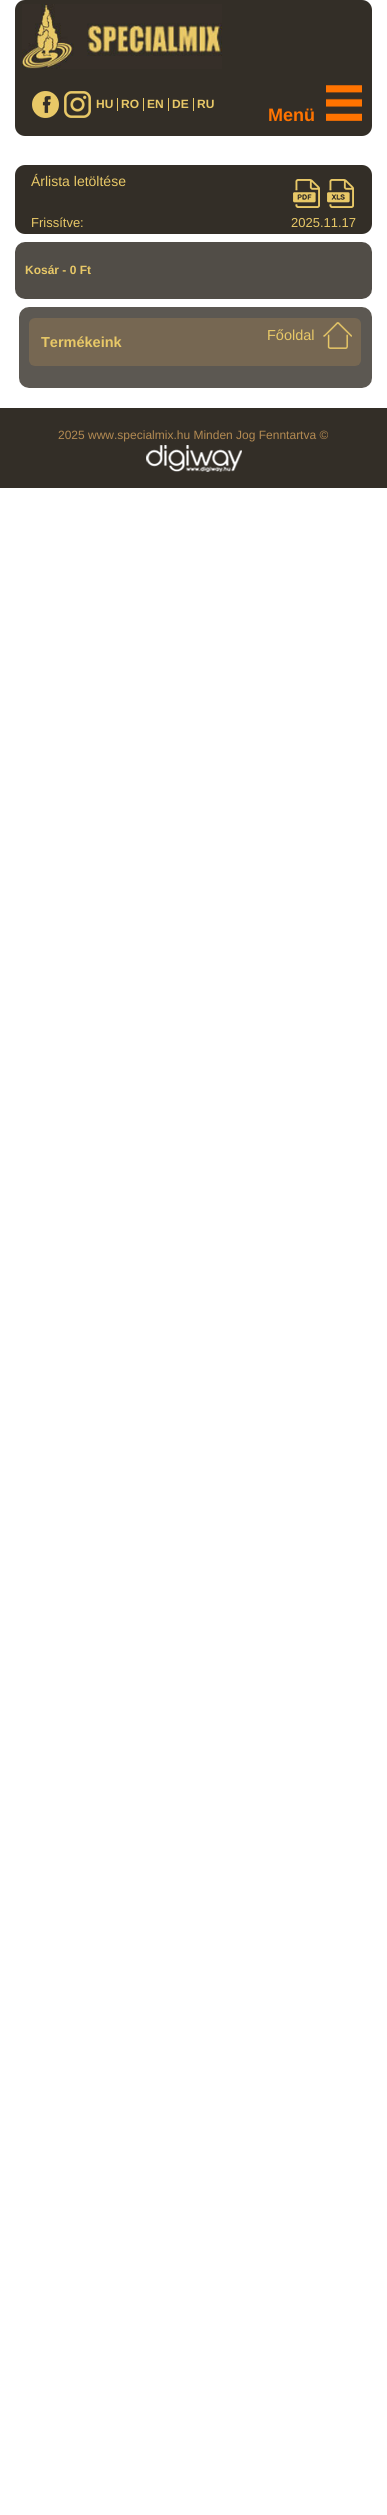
#include <cairo.h>
#include <math.h>
#include <stddef.h>

static cairo_t *ctx;

static void use_color(int r, int g, int b) {
    cairo_set_source_rgb(ctx, r / 255.0, g / 255.0, b / 255.0);
}

static void round_rect(double x, double y, double w, double h, double r) {
    cairo_new_sub_path(ctx);
    cairo_arc(ctx, x + w - r, y + h - r, r, 0, M_PI / 2);
    cairo_arc(ctx, x + r, y + h - r, r, M_PI / 2, M_PI);
    cairo_arc(ctx, x + r, y + r, r, M_PI, 1.5 * M_PI);
    cairo_arc(ctx, x + w - r, y + r, r, 1.5 * M_PI, 2 * M_PI);
    cairo_close_path(ctx);
}

static void picture(const char *path, double x, double y, double w, double h) {
    cairo_surface_t *image = cairo_image_surface_create_from_png(path);
    cairo_save(ctx);
    cairo_set_source_surface(ctx, image, x, y);
    cairo_rectangle(ctx, x, y, w, h);
    cairo_fill(ctx);
    cairo_restore(ctx);
    cairo_surface_destroy(image);
}

int main(void) {
    cairo_surface_t *surface = cairo_image_surface_create(CAIRO_FORMAT_RGB24, 387, 2515);
    ctx = cairo_create(surface);
    cairo_font_options_t *options = cairo_font_options_create();
    cairo_font_options_set_hint_metrics(options, CAIRO_HINT_METRICS_OFF);
    cairo_font_options_set_hint_style(options, CAIRO_HINT_STYLE_NONE);
    cairo_set_font_options(ctx, options);
    cairo_set_miter_limit(ctx, 4);
    use_color(255, 255, 255);
    cairo_paint(ctx);
    use_color(51, 46, 39);
    round_rect(15, 0, 357, 136, 10);
    cairo_fill(ctx);
    picture("img1.png", 22, 4, 200, 65);
    picture("img2.png", 32, 91, 27, 27);
    picture("img3.png", 64, 91, 27, 27);
    cairo_select_font_face(ctx, "Liberation Sans", CAIRO_FONT_SLANT_NORMAL, CAIRO_FONT_WEIGHT_BOLD);
    cairo_set_font_size(ctx, 12);
    use_color(232, 200, 103);
    cairo_move_to(ctx, 96, 108);
    cairo_show_text(ctx, "HU");
    cairo_rectangle(ctx, 117, 98, 1, 13);
    cairo_fill(ctx);
    cairo_move_to(ctx, 121, 108);
    cairo_show_text(ctx, "RO");
    cairo_rectangle(ctx, 143, 98, 1, 13);
    cairo_fill(ctx);
    cairo_move_to(ctx, 147, 108);
    cairo_show_text(ctx, "EN");
    cairo_rectangle(ctx, 168, 98, 1, 13);
    cairo_fill(ctx);
    cairo_move_to(ctx, 172, 108);
    cairo_show_text(ctx, "DE");
    cairo_rectangle(ctx, 193, 98, 1, 13);
    cairo_fill(ctx);
    cairo_move_to(ctx, 197, 108);
    cairo_show_text(ctx, "RU");
    cairo_set_font_size(ctx, 18);
    use_color(255, 115, 0);
    cairo_move_to(ctx, 268, 121);
    cairo_show_text(ctx, "Menü");
    picture("img4.png", 326, 85, 36, 36);
    use_color(51, 46, 39);
    round_rect(15, 165, 357, 69, 10);
    cairo_fill(ctx);
    cairo_select_font_face(ctx, "Liberation Sans", CAIRO_FONT_SLANT_NORMAL, CAIRO_FONT_WEIGHT_NORMAL);
    cairo_set_font_size(ctx, 14);
    use_color(232, 200, 103);
    cairo_move_to(ctx, 31, 186);
    cairo_show_text(ctx, "Árlista letöltése");
    picture("img5.png", 293, 179, 27, 29);
    picture("img6.png", 327, 179, 27, 29);
    cairo_set_font_size(ctx, 13);
    cairo_move_to(ctx, 31, 227);
    cairo_show_text(ctx, "Frissítve:");
    cairo_move_to(ctx, 291, 227);
    cairo_show_text(ctx, "2025.11.17");
    picture("img7.png", 15, 242, 357, 57);
    cairo_select_font_face(ctx, "Liberation Sans", CAIRO_FONT_SLANT_NORMAL, CAIRO_FONT_WEIGHT_BOLD);
    cairo_set_font_size(ctx, 12);
    cairo_move_to(ctx, 25, 274);
    cairo_show_text(ctx, "Kosár - 0 Ft");
    picture("img8.png", 19, 307, 353, 81);
    picture("img9.png", 29, 318, 332, 48);
    cairo_set_font_size(ctx, 14.5);
    cairo_move_to(ctx, 41, 347);
    cairo_show_text(ctx, "Termékeink");
    picture("img10.png", 323, 322, 29, 27);
    cairo_select_font_face(ctx, "Liberation Sans", CAIRO_FONT_SLANT_NORMAL, CAIRO_FONT_WEIGHT_NORMAL);
    cairo_move_to(ctx, 267, 340);
    cairo_show_text(ctx, "Főoldal");
    use_color(51, 46, 39);
    cairo_rectangle(ctx, 0, 408, 387, 80);
    cairo_fill(ctx);
    cairo_set_font_size(ctx, 12);
    use_color(179, 138, 82);
    cairo_move_to(ctx, 58, 439);
    cairo_show_text(ctx, "2025 www.specialmix.hu Minden Jog Fenntartva ©");
    picture("img11.png", 146, 445, 96, 27);
    cairo_surface_write_to_png(surface, "result.png");
    cairo_font_options_destroy(options);
    cairo_destroy(ctx);
    cairo_surface_destroy(surface);
    return 0;
}
